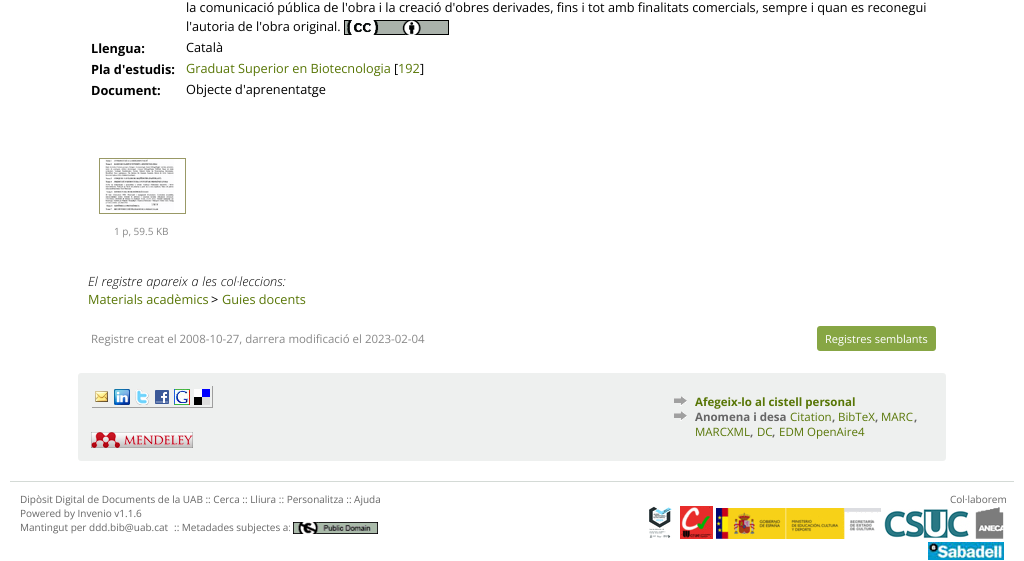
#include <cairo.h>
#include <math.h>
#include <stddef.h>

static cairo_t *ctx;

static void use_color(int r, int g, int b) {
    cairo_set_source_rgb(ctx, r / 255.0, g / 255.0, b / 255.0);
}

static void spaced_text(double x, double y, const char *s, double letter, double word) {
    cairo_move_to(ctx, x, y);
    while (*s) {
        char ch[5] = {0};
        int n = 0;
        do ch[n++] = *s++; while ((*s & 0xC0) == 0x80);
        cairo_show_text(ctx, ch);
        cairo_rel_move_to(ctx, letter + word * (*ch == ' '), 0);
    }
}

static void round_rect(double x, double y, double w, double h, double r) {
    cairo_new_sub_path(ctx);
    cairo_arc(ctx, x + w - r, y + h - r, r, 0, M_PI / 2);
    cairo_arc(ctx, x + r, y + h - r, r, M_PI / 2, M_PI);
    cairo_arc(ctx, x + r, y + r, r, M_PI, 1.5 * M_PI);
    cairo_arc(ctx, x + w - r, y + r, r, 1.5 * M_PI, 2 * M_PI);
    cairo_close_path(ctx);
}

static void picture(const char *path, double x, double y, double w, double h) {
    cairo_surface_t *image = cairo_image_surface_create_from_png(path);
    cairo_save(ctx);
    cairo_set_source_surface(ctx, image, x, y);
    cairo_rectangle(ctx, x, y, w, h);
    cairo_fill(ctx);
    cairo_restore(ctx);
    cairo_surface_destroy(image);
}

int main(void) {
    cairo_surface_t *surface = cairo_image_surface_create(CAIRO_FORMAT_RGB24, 1024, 561);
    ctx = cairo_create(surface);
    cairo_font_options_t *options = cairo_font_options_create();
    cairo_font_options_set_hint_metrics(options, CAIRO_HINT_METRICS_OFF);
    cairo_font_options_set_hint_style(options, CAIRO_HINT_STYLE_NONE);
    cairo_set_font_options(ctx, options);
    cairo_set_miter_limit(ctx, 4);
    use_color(255, 255, 255);
    cairo_paint(ctx);
    cairo_select_font_face(ctx, "Open Sans", CAIRO_FONT_SLANT_NORMAL, CAIRO_FONT_WEIGHT_NORMAL);
    cairo_set_font_size(ctx, 12.72);
    use_color(0, 0, 0);
    cairo_move_to(ctx, 186, 12);
    cairo_show_text(ctx, "la comunicació pública de l'obra i la creació d'obres derivades, fins i tot amb finalitats comercials, sempre i quan es reconegui");
    cairo_move_to(ctx, 186, 31);
    cairo_show_text(ctx, "l'autoria de l'obra original.");
    picture("img1.png", 344, 20, 105, 15);
    cairo_select_font_face(ctx, "Open Sans", CAIRO_FONT_SLANT_NORMAL, CAIRO_FONT_WEIGHT_BOLD);
    cairo_move_to(ctx, 91, 53);
    cairo_show_text(ctx, "Llengua:");
    cairo_select_font_face(ctx, "Open Sans", CAIRO_FONT_SLANT_NORMAL, CAIRO_FONT_WEIGHT_NORMAL);
    cairo_move_to(ctx, 186, 52);
    cairo_show_text(ctx, "Català");
    cairo_select_font_face(ctx, "Open Sans", CAIRO_FONT_SLANT_NORMAL, CAIRO_FONT_WEIGHT_BOLD);
    cairo_move_to(ctx, 91, 74);
    cairo_show_text(ctx, "Pla d'estudis:");
    cairo_select_font_face(ctx, "Open Sans", CAIRO_FONT_SLANT_NORMAL, CAIRO_FONT_WEIGHT_NORMAL);
    use_color(88, 118, 6);
    cairo_move_to(ctx, 186, 73);
    cairo_show_text(ctx, "Graduat Superior en Biotecnologia");
    use_color(0, 0, 0);
    cairo_move_to(ctx, 394, 73);
    cairo_show_text(ctx, "[");
    use_color(88, 118, 6);
    cairo_move_to(ctx, 398, 73);
    cairo_show_text(ctx, "192");
    use_color(0, 0, 0);
    cairo_move_to(ctx, 420, 73);
    cairo_show_text(ctx, "]");
    cairo_select_font_face(ctx, "Open Sans", CAIRO_FONT_SLANT_NORMAL, CAIRO_FONT_WEIGHT_BOLD);
    cairo_move_to(ctx, 91, 95);
    cairo_show_text(ctx, "Document:");
    cairo_select_font_face(ctx, "Open Sans", CAIRO_FONT_SLANT_NORMAL, CAIRO_FONT_WEIGHT_NORMAL);
    cairo_move_to(ctx, 186, 94);
    cairo_show_text(ctx, "Objecte d'aprenentatge");
    cairo_rectangle(ctx, 99.5, 158.5, 86, 55);
    use_color(153, 153, 102);
    cairo_set_line_width(ctx, 1);
    cairo_stroke(ctx);
    picture("img2.png", 105, 159, 69, 52);
    cairo_set_font_size(ctx, 10);
    use_color(136, 136, 136);
    cairo_move_to(ctx, 114, 235);
    cairo_show_text(ctx, "1 p, 59.5 KB");
    cairo_select_font_face(ctx, "Open Sans Light", CAIRO_FONT_SLANT_ITALIC, CAIRO_FONT_WEIGHT_NORMAL);
    cairo_set_font_size(ctx, 12.72);
    use_color(0, 0, 0);
    spaced_text(88, 286, "El registre apareix a les col·leccions:", 0, 0.5);
    cairo_select_font_face(ctx, "Open Sans", CAIRO_FONT_SLANT_NORMAL, CAIRO_FONT_WEIGHT_NORMAL);
    use_color(88, 118, 6);
    cairo_move_to(ctx, 88, 304);
    cairo_show_text(ctx, "Materials acadèmics");
    use_color(0, 0, 0);
    cairo_move_to(ctx, 211, 304);
    cairo_show_text(ctx, ">");
    use_color(88, 118, 6);
    cairo_move_to(ctx, 222, 304);
    cairo_show_text(ctx, "Guies docents");
    cairo_set_font_size(ctx, 11.45);
    use_color(136, 136, 136);
    cairo_move_to(ctx, 91, 343);
    cairo_show_text(ctx, "Registre creat el 2008-10-27, darrera modificació el 2023-02-04");
    use_color(135, 166, 68);
    round_rect(817, 326, 119, 25, 3);
    cairo_fill(ctx);
    cairo_set_font_size(ctx, 11);
    use_color(255, 255, 255);
    cairo_move_to(ctx, 825, 343);
    cairo_show_text(ctx, "Registres semblants");
    use_color(238, 240, 239);
    round_rect(78, 373, 868, 88, 3);
    cairo_fill(ctx);
    use_color(159, 159, 159);
    cairo_rectangle(ctx, 212, 386, 1, 22);
    cairo_fill(ctx);
    cairo_rectangle(ctx, 91, 407, 122, 1);
    cairo_fill(ctx);
    use_color(238, 238, 238);
    cairo_rectangle(ctx, 91, 407, 1, 1);
    cairo_fill(ctx);
    picture("img3.png", 95, 391, 13, 11);
    picture("img4.png", 114, 389, 16, 16);
    picture("img5.png", 135, 389, 14, 16);
    picture("img6.png", 155, 390, 14, 14);
    picture("img7.png", 174, 389, 16, 16);
    picture("img8.png", 194, 389, 16, 16);
    picture("img9.png", 91, 432, 102, 16);
    picture("img10.png", 674, 396, 13, 10);
    cairo_select_font_face(ctx, "Open Sans", CAIRO_FONT_SLANT_NORMAL, CAIRO_FONT_WEIGHT_BOLD);
    cairo_set_font_size(ctx, 11.5);
    use_color(88, 118, 6);
    cairo_move_to(ctx, 695, 406);
    cairo_show_text(ctx, "Afegeix-lo al cistell personal");
    picture("img10.png", 674, 411, 13, 10);
    use_color(102, 102, 102);
    cairo_move_to(ctx, 695, 421);
    cairo_show_text(ctx, "Anomena i desa");
    cairo_select_font_face(ctx, "Open Sans", CAIRO_FONT_SLANT_NORMAL, CAIRO_FONT_WEIGHT_NORMAL);
    use_color(88, 118, 6);
    cairo_move_to(ctx, 790, 421);
    cairo_show_text(ctx, "Citation");
    cairo_select_font_face(ctx, "Open Sans", CAIRO_FONT_SLANT_NORMAL, CAIRO_FONT_WEIGHT_BOLD);
    use_color(102, 102, 102);
    cairo_move_to(ctx, 832, 421);
    cairo_show_text(ctx, ",");
    cairo_select_font_face(ctx, "Open Sans", CAIRO_FONT_SLANT_NORMAL, CAIRO_FONT_WEIGHT_NORMAL);
    use_color(88, 118, 6);
    cairo_move_to(ctx, 838, 421);
    cairo_show_text(ctx, "BibTeX");
    cairo_select_font_face(ctx, "Open Sans", CAIRO_FONT_SLANT_NORMAL, CAIRO_FONT_WEIGHT_BOLD);
    use_color(102, 102, 102);
    cairo_move_to(ctx, 875, 421);
    cairo_show_text(ctx, ",");
    cairo_select_font_face(ctx, "Open Sans", CAIRO_FONT_SLANT_NORMAL, CAIRO_FONT_WEIGHT_NORMAL);
    use_color(88, 118, 6);
    cairo_move_to(ctx, 881, 421);
    cairo_show_text(ctx, "MARC");
    cairo_select_font_face(ctx, "Open Sans", CAIRO_FONT_SLANT_NORMAL, CAIRO_FONT_WEIGHT_BOLD);
    use_color(102, 102, 102);
    cairo_move_to(ctx, 914, 421);
    cairo_show_text(ctx, ",");
    cairo_select_font_face(ctx, "Open Sans", CAIRO_FONT_SLANT_NORMAL, CAIRO_FONT_WEIGHT_NORMAL);
    use_color(88, 118, 6);
    cairo_move_to(ctx, 695, 436);
    cairo_show_text(ctx, "MARCXML");
    cairo_select_font_face(ctx, "Open Sans", CAIRO_FONT_SLANT_NORMAL, CAIRO_FONT_WEIGHT_BOLD);
    use_color(102, 102, 102);
    cairo_move_to(ctx, 750, 436);
    cairo_show_text(ctx, ",");
    cairo_select_font_face(ctx, "Open Sans", CAIRO_FONT_SLANT_NORMAL, CAIRO_FONT_WEIGHT_NORMAL);
    use_color(88, 118, 6);
    cairo_move_to(ctx, 757, 436);
    cairo_show_text(ctx, "DC");
    cairo_select_font_face(ctx, "Open Sans", CAIRO_FONT_SLANT_NORMAL, CAIRO_FONT_WEIGHT_BOLD);
    use_color(102, 102, 102);
    cairo_move_to(ctx, 772, 436);
    cairo_show_text(ctx, ",");
    cairo_select_font_face(ctx, "Open Sans", CAIRO_FONT_SLANT_NORMAL, CAIRO_FONT_WEIGHT_NORMAL);
    use_color(88, 118, 6);
    cairo_move_to(ctx, 779, 436);
    cairo_show_text(ctx, "EDM OpenAire4");
    use_color(212, 218, 214);
    cairo_rectangle(ctx, 10, 481, 1004, 1);
    cairo_fill(ctx);
    cairo_set_font_size(ctx, 10);
    use_color(102, 102, 102);
    cairo_move_to(ctx, 20, 503);
    cairo_show_text(ctx, "Dipòsit Digital de Documents de la UAB :: Cerca :: Lliura :: Personalitza :: Ajuda");
    cairo_move_to(ctx, 20, 517);
    cairo_show_text(ctx, "Powered by Invenio v1.1.6");
    cairo_move_to(ctx, 20, 531);
    cairo_show_text(ctx, "Mantingut per ddd.bib@uab.cat");
    cairo_move_to(ctx, 174, 531);
    cairo_show_text(ctx, ":: Metadades subjectes a:");
    picture("img11.png", 293, 522, 85, 12);
    cairo_move_to(ctx, 950, 503);
    cairo_show_text(ctx, "Col·laborem");
    picture("img12.png", 649, 506, 23, 32);
    picture("img13.png", 680, 506, 33, 33);
    picture("img14.png", 716, 508, 165, 31);
    picture("img15.png", 884, 509, 87, 30);
    picture("img16.png", 975, 507, 29, 32);
    picture("img17.png", 928, 542, 76, 18);
    cairo_surface_write_to_png(surface, "result.png");
    cairo_font_options_destroy(options);
    cairo_destroy(ctx);
    cairo_surface_destroy(surface);
    return 0;
}
